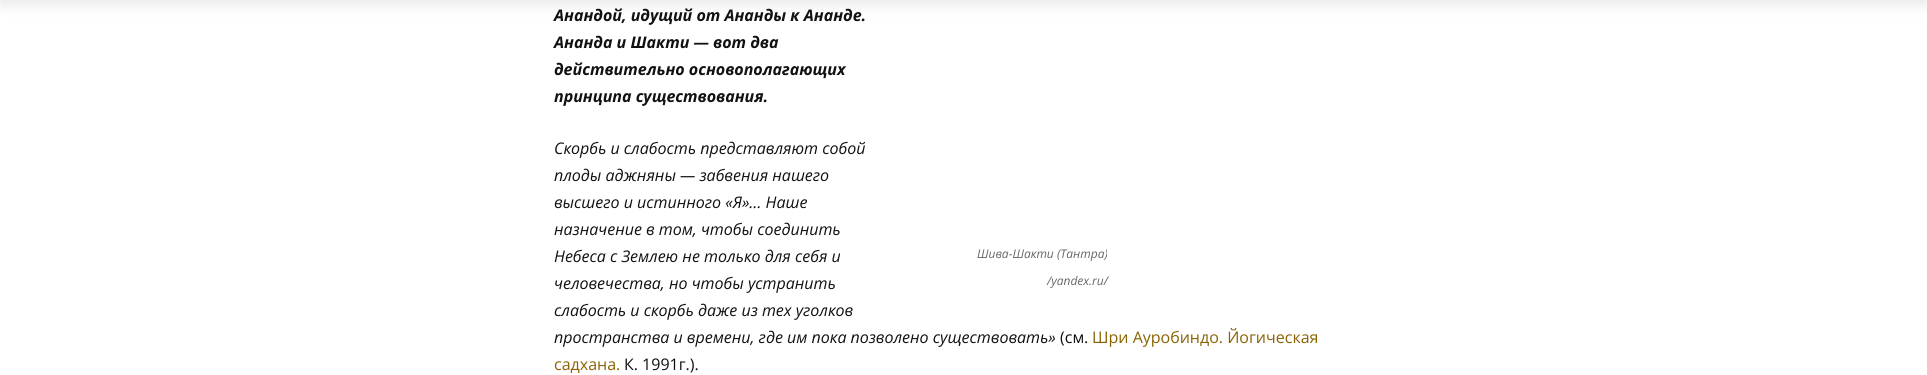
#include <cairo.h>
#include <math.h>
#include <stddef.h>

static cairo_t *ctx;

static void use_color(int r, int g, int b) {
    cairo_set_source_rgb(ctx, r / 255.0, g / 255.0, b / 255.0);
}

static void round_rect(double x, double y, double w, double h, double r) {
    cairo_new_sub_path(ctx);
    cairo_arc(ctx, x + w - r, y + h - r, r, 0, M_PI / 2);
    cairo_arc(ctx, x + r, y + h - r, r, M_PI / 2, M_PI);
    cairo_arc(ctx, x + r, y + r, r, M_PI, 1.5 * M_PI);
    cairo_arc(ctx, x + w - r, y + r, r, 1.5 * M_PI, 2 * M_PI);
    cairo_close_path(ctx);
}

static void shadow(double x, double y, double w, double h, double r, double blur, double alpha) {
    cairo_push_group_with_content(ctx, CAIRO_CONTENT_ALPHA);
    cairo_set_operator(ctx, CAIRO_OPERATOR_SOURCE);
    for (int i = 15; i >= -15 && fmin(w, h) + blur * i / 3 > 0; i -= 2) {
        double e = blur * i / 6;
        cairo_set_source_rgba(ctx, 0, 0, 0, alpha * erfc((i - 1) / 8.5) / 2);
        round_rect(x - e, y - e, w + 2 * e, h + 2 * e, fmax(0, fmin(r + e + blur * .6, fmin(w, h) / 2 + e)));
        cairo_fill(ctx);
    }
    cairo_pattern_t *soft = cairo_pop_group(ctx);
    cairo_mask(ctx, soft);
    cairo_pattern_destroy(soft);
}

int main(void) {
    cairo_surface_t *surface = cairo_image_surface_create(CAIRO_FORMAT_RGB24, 1927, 375);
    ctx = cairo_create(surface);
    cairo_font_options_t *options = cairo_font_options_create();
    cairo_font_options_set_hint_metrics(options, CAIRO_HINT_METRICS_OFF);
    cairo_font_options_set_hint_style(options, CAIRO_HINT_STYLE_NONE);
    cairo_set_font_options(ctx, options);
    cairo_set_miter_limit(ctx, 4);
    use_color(255, 255, 255);
    cairo_paint(ctx);
    use_color(0, 0, 0);
    shadow(0, -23, 1927, 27, 0, 7.5, 0.1);
    cairo_select_font_face(ctx, "Open Sans", CAIRO_FONT_SLANT_ITALIC, CAIRO_FONT_WEIGHT_BOLD);
    cairo_set_font_size(ctx, 16);
    use_color(17, 17, 17);
    cairo_move_to(ctx, 554, 21);
    cairo_show_text(ctx, "Анандой, идущий от Ананды к Ананде.");
    cairo_move_to(ctx, 554, 48);
    cairo_show_text(ctx, "Ананда и Шакти — вот два");
    cairo_move_to(ctx, 554, 75);
    cairo_show_text(ctx, "действительно основополагающих");
    cairo_move_to(ctx, 554, 102);
    cairo_show_text(ctx, "принципа существования.");
    cairo_select_font_face(ctx, "Open Sans", CAIRO_FONT_SLANT_ITALIC, CAIRO_FONT_WEIGHT_NORMAL);
    cairo_move_to(ctx, 554, 154);
    cairo_show_text(ctx, "Скорбь и слабость представляют собой");
    cairo_move_to(ctx, 554, 181);
    cairo_show_text(ctx, "плоды аджняны — забвения нашего");
    cairo_move_to(ctx, 554, 208);
    cairo_show_text(ctx, "высшего и истинного «Я»… Наше");
    cairo_move_to(ctx, 554, 235);
    cairo_show_text(ctx, "назначение в том, чтобы соединить");
    cairo_move_to(ctx, 554, 262);
    cairo_show_text(ctx, "Небеса с Землею не только для себя и");
    cairo_move_to(ctx, 554, 289);
    cairo_show_text(ctx, "человечества, но чтобы устранить");
    cairo_move_to(ctx, 554, 316);
    cairo_show_text(ctx, "слабость и скорбь даже из тех уголков");
    cairo_move_to(ctx, 554, 343);
    cairo_show_text(ctx, "пространства и времени, где им пока позволено существовать»");
    cairo_select_font_face(ctx, "Open Sans", CAIRO_FONT_SLANT_NORMAL, CAIRO_FONT_WEIGHT_NORMAL);
    cairo_move_to(ctx, 1060, 343);
    cairo_show_text(ctx, "(см.");
    use_color(138, 98, 3);
    cairo_move_to(ctx, 1092, 343);
    cairo_show_text(ctx, "Шри Ауробиндо. Йогическая");
    cairo_move_to(ctx, 554, 370);
    cairo_show_text(ctx, "садхана.");
    use_color(17, 17, 17);
    cairo_move_to(ctx, 624, 370);
    cairo_show_text(ctx, "К. 1991г.).");
    cairo_select_font_face(ctx, "Open Sans", CAIRO_FONT_SLANT_ITALIC, CAIRO_FONT_WEIGHT_NORMAL);
    cairo_set_font_size(ctx, 12);
    use_color(102, 102, 102);
    cairo_move_to(ctx, 977, 258);
    cairo_show_text(ctx, "Шива-Шакти (Тантра)");
    cairo_move_to(ctx, 1047, 285);
    cairo_show_text(ctx, "/yandex.ru/");
    cairo_surface_write_to_png(surface, "result.png");
    cairo_font_options_destroy(options);
    cairo_destroy(ctx);
    cairo_surface_destroy(surface);
    return 0;
}
